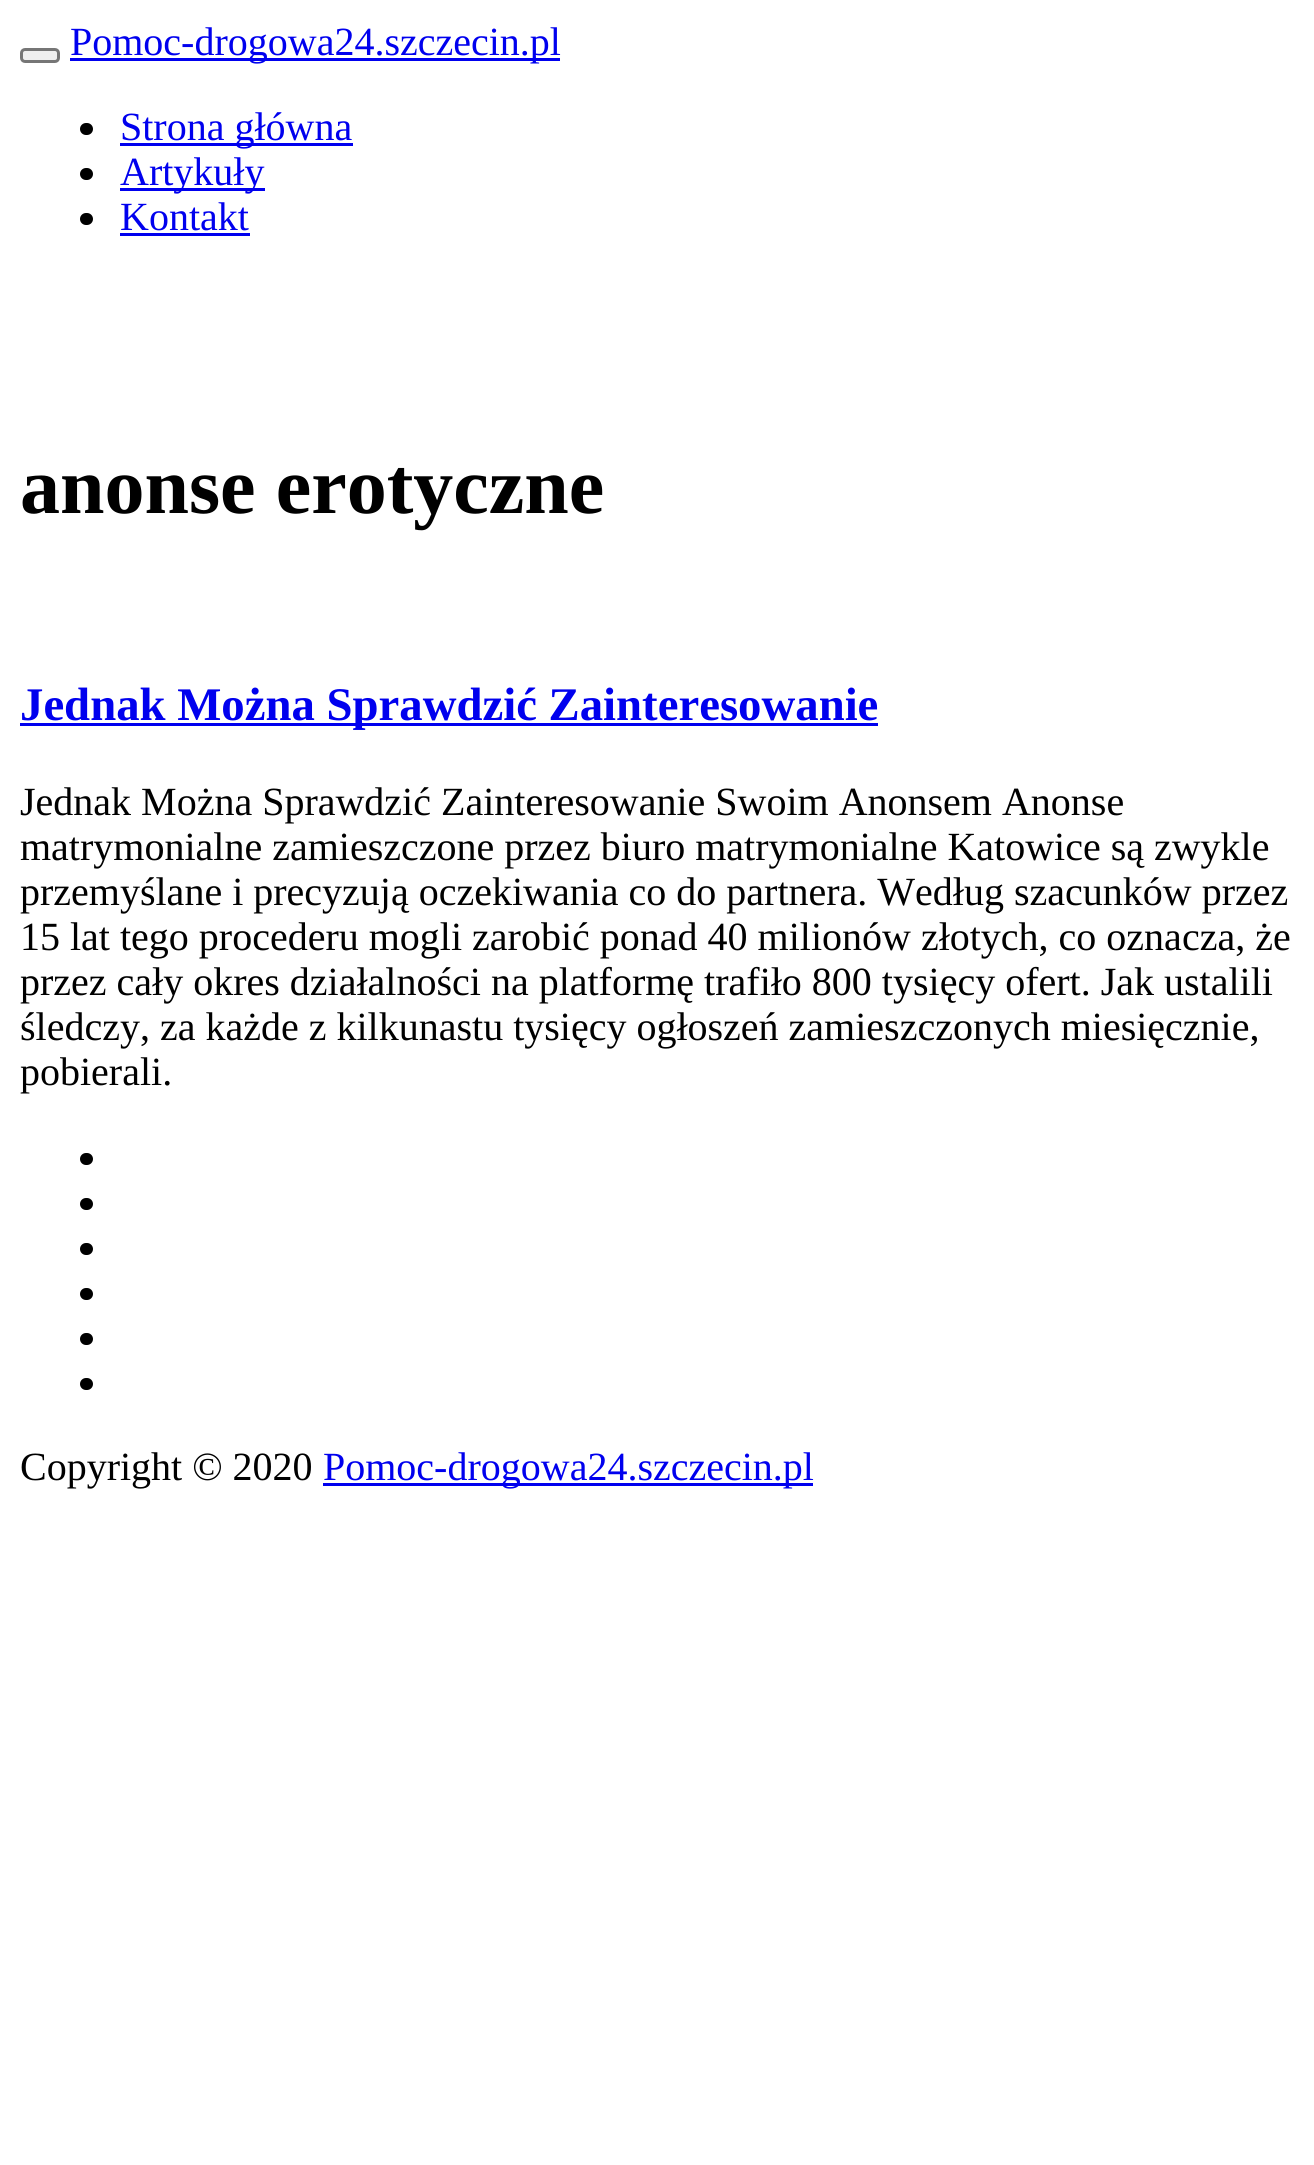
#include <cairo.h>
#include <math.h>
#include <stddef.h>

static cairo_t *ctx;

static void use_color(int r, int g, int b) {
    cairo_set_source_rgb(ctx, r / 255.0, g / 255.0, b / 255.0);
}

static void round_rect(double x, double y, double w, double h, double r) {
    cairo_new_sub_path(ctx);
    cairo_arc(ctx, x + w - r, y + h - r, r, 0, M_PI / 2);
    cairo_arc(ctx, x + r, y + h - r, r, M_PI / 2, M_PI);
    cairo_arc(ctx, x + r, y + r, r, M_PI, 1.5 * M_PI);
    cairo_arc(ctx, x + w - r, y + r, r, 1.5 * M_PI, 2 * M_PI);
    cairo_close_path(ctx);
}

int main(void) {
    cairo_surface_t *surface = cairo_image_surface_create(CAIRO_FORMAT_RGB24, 1314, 2165);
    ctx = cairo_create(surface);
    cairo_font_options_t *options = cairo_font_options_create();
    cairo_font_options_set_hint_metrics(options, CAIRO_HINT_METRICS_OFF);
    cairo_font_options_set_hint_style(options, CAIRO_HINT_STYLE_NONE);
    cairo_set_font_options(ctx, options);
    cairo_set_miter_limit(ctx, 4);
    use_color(255, 255, 255);
    cairo_paint(ctx);
    use_color(239, 239, 239);
    round_rect(21.5, 49.5, 37, 12, 3.5);
    cairo_fill_preserve(ctx);
    use_color(118, 118, 118);
    cairo_set_line_width(ctx, 3);
    cairo_stroke(ctx);
    use_color(0, 0, 238);
    cairo_rectangle(ctx, 70, 58, 490, 3);
    cairo_fill(ctx);
    cairo_select_font_face(ctx, "Liberation Serif", CAIRO_FONT_SLANT_NORMAL, CAIRO_FONT_WEIGHT_NORMAL);
    cairo_set_font_size(ctx, 40);
    cairo_move_to(ctx, 70, 55);
    cairo_show_text(ctx, "Pomoc-drogowa24.szczecin.pl");
    use_color(0, 0, 0);
    round_rect(80, 123, 13, 12, 6);
    cairo_fill(ctx);
    use_color(0, 0, 238);
    cairo_rectangle(ctx, 120, 143, 233, 3);
    cairo_fill(ctx);
    cairo_move_to(ctx, 120, 140);
    cairo_show_text(ctx, "Strona główna");
    use_color(0, 0, 0);
    round_rect(80, 168, 13, 12, 6);
    cairo_fill(ctx);
    use_color(0, 0, 238);
    cairo_rectangle(ctx, 120, 188, 145, 3);
    cairo_fill(ctx);
    cairo_move_to(ctx, 120, 185);
    cairo_show_text(ctx, "Artykuły");
    use_color(0, 0, 0);
    round_rect(80, 213, 13, 12, 6);
    cairo_fill(ctx);
    use_color(0, 0, 238);
    cairo_move_to(ctx, 120, 230);
    cairo_show_text(ctx, "Kontakt");
    cairo_rectangle(ctx, 120, 233, 130, 3);
    cairo_fill(ctx);
    cairo_select_font_face(ctx, "Liberation Serif", CAIRO_FONT_SLANT_NORMAL, CAIRO_FONT_WEIGHT_BOLD);
    cairo_set_font_size(ctx, 80);
    use_color(0, 0, 0);
    cairo_move_to(ctx, 20, 513);
    cairo_show_text(ctx, "anonse erotyczne");
    use_color(0, 0, 238);
    cairo_rectangle(ctx, 20, 723, 858, 3);
    cairo_fill(ctx);
    cairo_set_font_size(ctx, 46.75);
    cairo_move_to(ctx, 20, 720);
    cairo_show_text(ctx, "Jednak Można Sprawdzić Zainteresowanie");
    cairo_select_font_face(ctx, "Liberation Serif", CAIRO_FONT_SLANT_NORMAL, CAIRO_FONT_WEIGHT_NORMAL);
    cairo_set_font_size(ctx, 40);
    use_color(0, 0, 0);
    cairo_move_to(ctx, 20, 815);
    cairo_show_text(ctx, "Jednak Można Sprawdzić Zainteresowanie Swoim Anonsem Anonse");
    cairo_move_to(ctx, 20, 860);
    cairo_show_text(ctx, "matrymonialne zamieszczone przez biuro matrymonialne Katowice są zwykle");
    cairo_move_to(ctx, 20, 905);
    cairo_show_text(ctx, "przemyślane i precyzują oczekiwania co do partnera. Według szacunków przez");
    cairo_move_to(ctx, 20, 950);
    cairo_show_text(ctx, "15 lat tego procederu mogli zarobić ponad 40 milionów złotych, co oznacza, że");
    cairo_move_to(ctx, 20, 995);
    cairo_show_text(ctx, "przez cały okres działalności na platformę trafiło 800 tysięcy ofert. Jak ustalili");
    cairo_move_to(ctx, 20, 1040);
    cairo_show_text(ctx, "śledczy, za każde z kilkunastu tysięcy ogłoszeń zamieszczonych miesięcznie,");
    cairo_move_to(ctx, 20, 1085);
    cairo_show_text(ctx, "pobierali.");
    round_rect(80, 1153, 13, 12, 6);
    cairo_fill(ctx);
    round_rect(80, 1198, 13, 12, 6);
    cairo_fill(ctx);
    round_rect(80, 1243, 13, 12, 6);
    cairo_fill(ctx);
    round_rect(80, 1288, 13, 12, 6);
    cairo_fill(ctx);
    round_rect(80, 1333, 13, 12, 6);
    cairo_fill(ctx);
    round_rect(80, 1378, 13, 12, 6);
    cairo_fill(ctx);
    cairo_move_to(ctx, 20, 1480);
    cairo_show_text(ctx, "Copyright © 2020");
    use_color(0, 0, 238);
    cairo_rectangle(ctx, 323, 1483, 490, 3);
    cairo_fill(ctx);
    cairo_move_to(ctx, 323, 1480);
    cairo_show_text(ctx, "Pomoc-drogowa24.szczecin.pl");
    cairo_surface_write_to_png(surface, "result.png");
    cairo_font_options_destroy(options);
    cairo_destroy(ctx);
    cairo_surface_destroy(surface);
    return 0;
}
